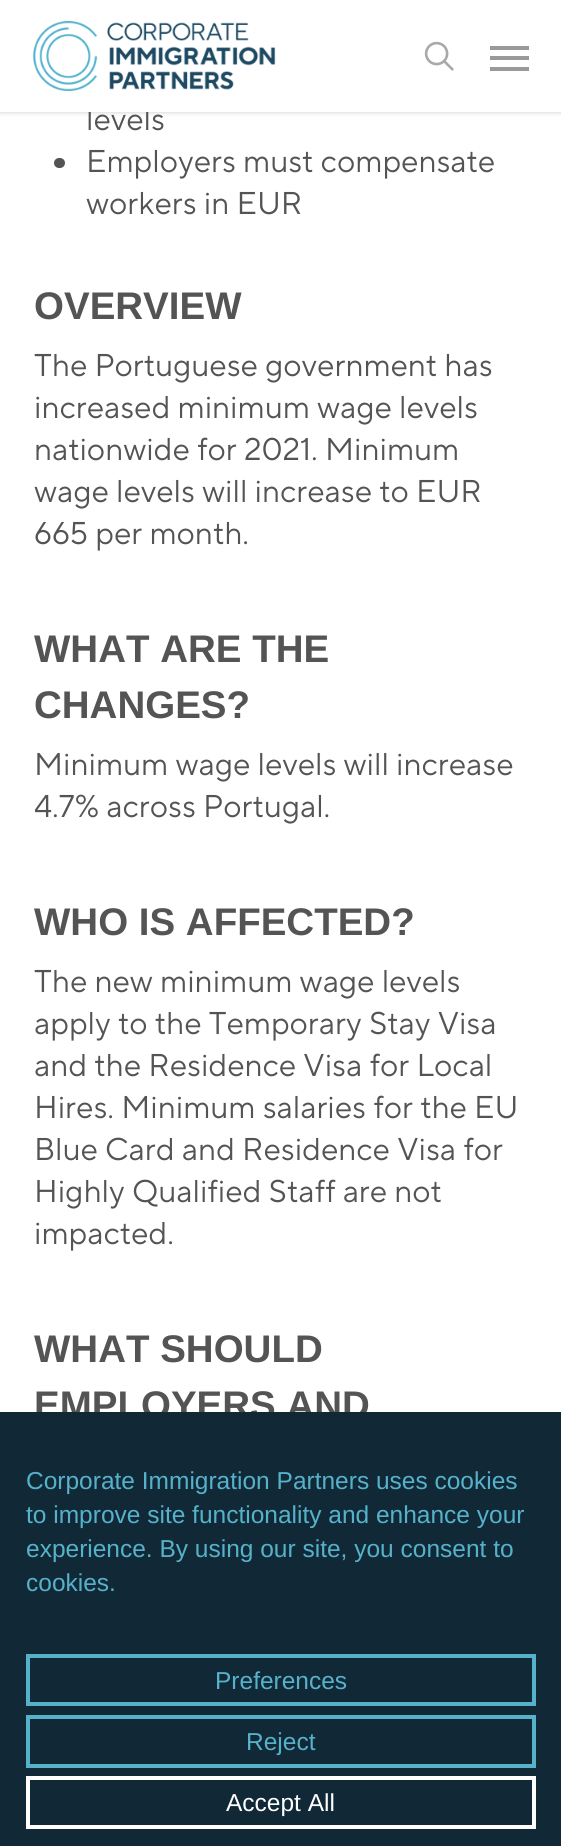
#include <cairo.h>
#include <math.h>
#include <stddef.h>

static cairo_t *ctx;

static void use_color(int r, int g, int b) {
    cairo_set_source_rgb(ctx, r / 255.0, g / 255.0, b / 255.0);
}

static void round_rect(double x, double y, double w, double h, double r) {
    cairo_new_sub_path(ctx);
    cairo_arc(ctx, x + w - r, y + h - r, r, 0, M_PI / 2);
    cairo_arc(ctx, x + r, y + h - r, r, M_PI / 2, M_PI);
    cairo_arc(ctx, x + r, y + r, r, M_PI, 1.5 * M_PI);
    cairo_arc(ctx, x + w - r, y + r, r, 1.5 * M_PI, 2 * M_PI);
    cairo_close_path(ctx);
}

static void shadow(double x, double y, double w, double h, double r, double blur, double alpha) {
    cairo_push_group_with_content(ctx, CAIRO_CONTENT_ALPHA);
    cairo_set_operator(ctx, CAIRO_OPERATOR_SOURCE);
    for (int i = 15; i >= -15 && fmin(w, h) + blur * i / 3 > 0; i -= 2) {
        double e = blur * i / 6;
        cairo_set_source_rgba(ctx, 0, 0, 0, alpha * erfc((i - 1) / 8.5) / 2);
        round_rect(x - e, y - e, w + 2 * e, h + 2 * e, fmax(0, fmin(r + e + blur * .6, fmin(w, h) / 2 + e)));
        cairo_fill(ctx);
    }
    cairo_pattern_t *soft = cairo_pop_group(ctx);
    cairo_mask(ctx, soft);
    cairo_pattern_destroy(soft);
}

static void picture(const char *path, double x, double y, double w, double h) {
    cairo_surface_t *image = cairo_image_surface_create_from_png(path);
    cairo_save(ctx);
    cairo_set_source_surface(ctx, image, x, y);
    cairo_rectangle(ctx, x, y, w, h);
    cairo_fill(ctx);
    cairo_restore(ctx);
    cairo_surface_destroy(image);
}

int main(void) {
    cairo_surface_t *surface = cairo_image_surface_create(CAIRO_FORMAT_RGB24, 561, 1846);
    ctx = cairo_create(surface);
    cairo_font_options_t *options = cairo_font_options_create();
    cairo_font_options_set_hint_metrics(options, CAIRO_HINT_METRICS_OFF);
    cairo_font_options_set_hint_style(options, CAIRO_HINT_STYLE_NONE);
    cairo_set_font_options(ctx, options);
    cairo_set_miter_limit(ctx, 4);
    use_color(255, 255, 255);
    cairo_paint(ctx);
    use_color(0, 0, 0);
    shadow(0, 0, 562, 112, 0, 2.5, 0.22);
    cairo_select_font_face(ctx, "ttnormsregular", CAIRO_FONT_SLANT_NORMAL, CAIRO_FONT_WEIGHT_NORMAL);
    cairo_set_font_size(ctx, 31.5);
    use_color(84, 84, 84);
    cairo_move_to(ctx, 86, 130);
    cairo_show_text(ctx, "levels");
    use_color(255, 255, 255);
    cairo_rectangle(ctx, 0, 0, 561, 112);
    cairo_fill(ctx);
    picture("img1.png", 33, 21, 243, 70);
    picture("img2.png", 424, 41, 30, 30);
    use_color(153, 153, 153);
    cairo_rectangle(ctx, 490, 46, 39, 4);
    cairo_fill(ctx);
    cairo_rectangle(ctx, 490, 67, 39, 4);
    cairo_fill(ctx);
    cairo_rectangle(ctx, 490, 56, 39, 4);
    cairo_fill(ctx);
    use_color(84, 84, 84);
    round_rect(54, 158, 11, 10, 5);
    cairo_fill(ctx);
    cairo_move_to(ctx, 86, 172);
    cairo_show_text(ctx, "Employers must compensate");
    cairo_move_to(ctx, 86, 214);
    cairo_show_text(ctx, "workers in EUR");
    cairo_select_font_face(ctx, "Liberation Sans", CAIRO_FONT_SLANT_NORMAL, CAIRO_FONT_WEIGHT_BOLD);
    cairo_set_font_size(ctx, 38.5);
    cairo_move_to(ctx, 34, 319);
    cairo_show_text(ctx, "OVERVIEW");
    cairo_select_font_face(ctx, "ttnormsregular", CAIRO_FONT_SLANT_NORMAL, CAIRO_FONT_WEIGHT_NORMAL);
    cairo_set_font_size(ctx, 31.5);
    cairo_move_to(ctx, 34, 376);
    cairo_show_text(ctx, "The Portuguese government has");
    cairo_move_to(ctx, 34, 418);
    cairo_show_text(ctx, "increased minimum wage levels");
    cairo_move_to(ctx, 34, 460);
    cairo_show_text(ctx, "nationwide for 2021. Minimum");
    cairo_move_to(ctx, 34, 502);
    cairo_show_text(ctx, "wage levels will increase to EUR");
    cairo_move_to(ctx, 34, 544);
    cairo_show_text(ctx, "665 per month.");
    cairo_select_font_face(ctx, "Liberation Sans", CAIRO_FONT_SLANT_NORMAL, CAIRO_FONT_WEIGHT_BOLD);
    cairo_set_font_size(ctx, 38.5);
    cairo_move_to(ctx, 34, 662);
    cairo_show_text(ctx, "WHAT ARE THE");
    cairo_move_to(ctx, 34, 718);
    cairo_show_text(ctx, "CHANGES?");
    cairo_select_font_face(ctx, "ttnormsregular", CAIRO_FONT_SLANT_NORMAL, CAIRO_FONT_WEIGHT_NORMAL);
    cairo_set_font_size(ctx, 31.5);
    cairo_move_to(ctx, 34, 775);
    cairo_show_text(ctx, "Minimum wage levels will increase");
    cairo_move_to(ctx, 34, 817);
    cairo_show_text(ctx, "4.7% across Portugal.");
    cairo_select_font_face(ctx, "Liberation Sans", CAIRO_FONT_SLANT_NORMAL, CAIRO_FONT_WEIGHT_BOLD);
    cairo_set_font_size(ctx, 38.5);
    cairo_move_to(ctx, 34, 935);
    cairo_show_text(ctx, "WHO IS AFFECTED?");
    cairo_select_font_face(ctx, "ttnormsregular", CAIRO_FONT_SLANT_NORMAL, CAIRO_FONT_WEIGHT_NORMAL);
    cairo_set_font_size(ctx, 31.5);
    cairo_move_to(ctx, 34, 992);
    cairo_show_text(ctx, "The new minimum wage levels");
    cairo_move_to(ctx, 34, 1034);
    cairo_show_text(ctx, "apply to the Temporary Stay Visa");
    cairo_move_to(ctx, 34, 1076);
    cairo_show_text(ctx, "and the Residence Visa for Local");
    cairo_move_to(ctx, 34, 1118);
    cairo_show_text(ctx, "Hires. Minimum salaries for the EU");
    cairo_move_to(ctx, 34, 1160);
    cairo_show_text(ctx, "Blue Card and Residence Visa for");
    cairo_move_to(ctx, 34, 1202);
    cairo_show_text(ctx, "Highly Qualified Staff are not");
    cairo_move_to(ctx, 34, 1244);
    cairo_show_text(ctx, "impacted.");
    cairo_select_font_face(ctx, "Liberation Sans", CAIRO_FONT_SLANT_NORMAL, CAIRO_FONT_WEIGHT_BOLD);
    cairo_set_font_size(ctx, 38.5);
    cairo_move_to(ctx, 34, 1362);
    cairo_show_text(ctx, "WHAT SHOULD");
    cairo_move_to(ctx, 34, 1418);
    cairo_show_text(ctx, "EMPLOYERS AND");
    use_color(17, 41, 54);
    cairo_rectangle(ctx, 0, 1412, 561, 434);
    cairo_fill(ctx);
    cairo_select_font_face(ctx, "Liberation Sans", CAIRO_FONT_SLANT_NORMAL, CAIRO_FONT_WEIGHT_NORMAL);
    cairo_set_font_size(ctx, 24.5);
    use_color(86, 178, 203);
    cairo_move_to(ctx, 26, 1489);
    cairo_show_text(ctx, "Corporate Immigration Partners uses cookies");
    cairo_move_to(ctx, 26, 1523);
    cairo_show_text(ctx, "to improve site functionality and enhance your");
    cairo_move_to(ctx, 26, 1557);
    cairo_show_text(ctx, "experience. By using our site, you consent to");
    cairo_move_to(ctx, 26, 1591);
    cairo_show_text(ctx, "cookies.");
    cairo_rectangle(ctx, 28, 1656, 506, 48);
    cairo_set_line_width(ctx, 4);
    cairo_stroke(ctx);
    cairo_move_to(ctx, 215, 1689);
    cairo_show_text(ctx, "Preferences");
    cairo_rectangle(ctx, 28, 1717, 506, 49);
    cairo_stroke(ctx);
    cairo_move_to(ctx, 246, 1750);
    cairo_show_text(ctx, "Reject");
    cairo_rectangle(ctx, 28, 1778, 506, 49);
    use_color(255, 255, 255);
    cairo_stroke(ctx);
    cairo_move_to(ctx, 226, 1811);
    cairo_show_text(ctx, "Accept All");
    cairo_surface_write_to_png(surface, "result.png");
    cairo_font_options_destroy(options);
    cairo_destroy(ctx);
    cairo_surface_destroy(surface);
    return 0;
}
